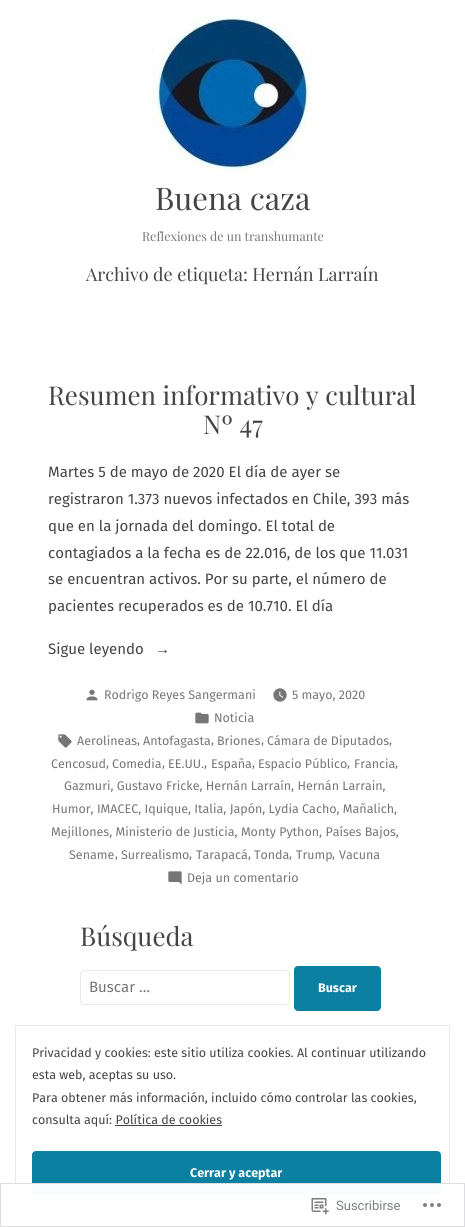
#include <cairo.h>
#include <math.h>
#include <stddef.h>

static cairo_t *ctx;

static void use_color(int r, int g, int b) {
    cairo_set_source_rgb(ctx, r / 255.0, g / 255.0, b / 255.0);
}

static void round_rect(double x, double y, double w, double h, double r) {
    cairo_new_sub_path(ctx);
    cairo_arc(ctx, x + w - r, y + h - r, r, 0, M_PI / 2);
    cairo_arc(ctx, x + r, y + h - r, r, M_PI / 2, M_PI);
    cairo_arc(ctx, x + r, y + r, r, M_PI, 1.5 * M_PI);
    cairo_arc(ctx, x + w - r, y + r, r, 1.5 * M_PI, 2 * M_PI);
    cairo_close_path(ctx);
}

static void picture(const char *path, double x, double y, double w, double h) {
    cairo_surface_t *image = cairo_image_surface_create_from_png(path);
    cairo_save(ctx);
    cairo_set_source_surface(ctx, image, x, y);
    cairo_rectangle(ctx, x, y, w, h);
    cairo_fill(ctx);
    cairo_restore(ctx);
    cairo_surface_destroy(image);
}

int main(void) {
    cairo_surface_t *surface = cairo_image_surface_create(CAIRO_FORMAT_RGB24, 465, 1227);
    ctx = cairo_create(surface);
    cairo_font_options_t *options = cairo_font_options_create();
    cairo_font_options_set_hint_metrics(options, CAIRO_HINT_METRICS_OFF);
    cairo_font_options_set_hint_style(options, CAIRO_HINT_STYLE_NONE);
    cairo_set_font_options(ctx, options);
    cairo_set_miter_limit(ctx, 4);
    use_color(255, 255, 255);
    cairo_paint(ctx);
    picture("img1.png", 152, 16, 160, 154);
    cairo_select_font_face(ctx, "Playfair Display", CAIRO_FONT_SLANT_NORMAL, CAIRO_FONT_WEIGHT_NORMAL);
    cairo_set_font_size(ctx, 31);
    use_color(68, 68, 68);
    cairo_move_to(ctx, 155, 210);
    cairo_show_text(ctx, "Buena caza");
    cairo_set_font_size(ctx, 12.5);
    use_color(118, 118, 118);
    cairo_move_to(ctx, 142, 241);
    cairo_show_text(ctx, "Reflexiones de un transhumante");
    cairo_set_font_size(ctx, 18);
    use_color(68, 68, 68);
    cairo_move_to(ctx, 86, 281);
    cairo_show_text(ctx, "Archivo de etiqueta: Hernán Larraín");
    cairo_set_font_size(ctx, 25.9);
    cairo_move_to(ctx, 48, 405);
    cairo_show_text(ctx, "Resumen informativo y cultural");
    cairo_move_to(ctx, 203, 434);
    cairo_show_text(ctx, "Nº 47");
    cairo_select_font_face(ctx, "Fira Sans", CAIRO_FONT_SLANT_NORMAL, CAIRO_FONT_WEIGHT_NORMAL);
    cairo_set_font_size(ctx, 15);
    cairo_move_to(ctx, 48, 477);
    cairo_show_text(ctx, "Martes 5 de mayo de 2020 El día de ayer se");
    cairo_move_to(ctx, 48, 504);
    cairo_show_text(ctx, "registraron 1.373 nuevos infectados en Chile, 393 más");
    cairo_move_to(ctx, 48, 531);
    cairo_show_text(ctx, "que en la jornada del domingo. El total de");
    cairo_move_to(ctx, 48, 558);
    cairo_show_text(ctx, "contagiados a la fecha es de 22.016, de los que 11.031");
    cairo_move_to(ctx, 48, 584);
    cairo_show_text(ctx, "se encuentran activos. Por su parte, el número de");
    cairo_move_to(ctx, 48, 611);
    cairo_show_text(ctx, "pacientes recuperados es de 10.710. El día");
    cairo_move_to(ctx, 48, 654);
    cairo_show_text(ctx, "Sigue leyendo");
    cairo_select_font_face(ctx, "Liberation Serif", CAIRO_FONT_SLANT_NORMAL, CAIRO_FONT_WEIGHT_NORMAL);
    cairo_move_to(ctx, 155, 654);
    cairo_show_text(ctx, "→");
    picture("img2.png", 86, 689, 12, 12);
    cairo_select_font_face(ctx, "Fira Sans", CAIRO_FONT_SLANT_NORMAL, CAIRO_FONT_WEIGHT_NORMAL);
    cairo_set_font_size(ctx, 12.5);
    use_color(118, 118, 118);
    cairo_move_to(ctx, 104, 699);
    cairo_show_text(ctx, "Rodrigo Reyes Sangermani");
    picture("img3.png", 273, 688, 14, 14);
    cairo_move_to(ctx, 292, 699);
    cairo_show_text(ctx, "5 mayo, 2020");
    picture("img4.png", 195, 712, 14, 12);
    cairo_move_to(ctx, 214, 722);
    cairo_show_text(ctx, "Noticia");
    picture("img5.png", 58, 734, 14, 14);
    cairo_move_to(ctx, 77, 745);
    cairo_show_text(ctx, "Aerolineas");
    cairo_move_to(ctx, 137, 744);
    cairo_show_text(ctx, ",");
    cairo_move_to(ctx, 143, 745);
    cairo_show_text(ctx, "Antofagasta");
    cairo_move_to(ctx, 211, 744);
    cairo_show_text(ctx, ",");
    cairo_move_to(ctx, 217, 745);
    cairo_show_text(ctx, "Briones");
    cairo_move_to(ctx, 261, 744);
    cairo_show_text(ctx, ",");
    cairo_move_to(ctx, 267, 745);
    cairo_show_text(ctx, "Cámara de Diputados");
    cairo_move_to(ctx, 389, 744);
    cairo_show_text(ctx, ",");
    cairo_move_to(ctx, 51, 768);
    cairo_show_text(ctx, "Cencosud");
    cairo_move_to(ctx, 106, 767);
    cairo_show_text(ctx, ",");
    cairo_move_to(ctx, 112, 768);
    cairo_show_text(ctx, "Comedia");
    cairo_move_to(ctx, 162, 767);
    cairo_show_text(ctx, ",");
    cairo_move_to(ctx, 168, 768);
    cairo_show_text(ctx, "EE.UU.");
    cairo_move_to(ctx, 204, 767);
    cairo_show_text(ctx, ",");
    cairo_move_to(ctx, 211, 768);
    cairo_show_text(ctx, "España");
    cairo_move_to(ctx, 252, 767);
    cairo_show_text(ctx, ",");
    cairo_move_to(ctx, 258, 768);
    cairo_show_text(ctx, "Espacio Público");
    cairo_move_to(ctx, 347, 767);
    cairo_show_text(ctx, ",");
    cairo_move_to(ctx, 354, 768);
    cairo_show_text(ctx, "Francia");
    cairo_move_to(ctx, 395, 767);
    cairo_show_text(ctx, ",");
    cairo_move_to(ctx, 64, 790);
    cairo_show_text(ctx, "Gazmuri, Gustavo Fricke, Hernán Larraín, Hernán Larrain,");
    cairo_move_to(ctx, 52, 813);
    cairo_show_text(ctx, "Humor, IMACEC, Iquique, Italia, Japón, Lydia Cacho, Mañalich,");
    cairo_move_to(ctx, 51, 836);
    cairo_show_text(ctx, "Mejillones, Ministerio de Justicia, Monty Python, Países Bajos,");
    cairo_move_to(ctx, 69, 859);
    cairo_show_text(ctx, "Sename");
    cairo_move_to(ctx, 115, 858);
    cairo_show_text(ctx, ",");
    cairo_move_to(ctx, 121, 859);
    cairo_show_text(ctx, "Surrealismo");
    cairo_move_to(ctx, 189, 858);
    cairo_show_text(ctx, ",");
    cairo_move_to(ctx, 196, 859);
    cairo_show_text(ctx, "Tarapacá");
    cairo_move_to(ctx, 248, 858);
    cairo_show_text(ctx, ",");
    cairo_move_to(ctx, 254, 859);
    cairo_show_text(ctx, "Tonda");
    cairo_move_to(ctx, 289, 858);
    cairo_show_text(ctx, ",");
    cairo_move_to(ctx, 296, 859);
    cairo_show_text(ctx, "Trump");
    cairo_move_to(ctx, 332, 858);
    cairo_show_text(ctx, ",");
    cairo_move_to(ctx, 339, 859);
    cairo_show_text(ctx, "Vacuna");
    picture("img6.png", 168, 871, 14, 14);
    cairo_move_to(ctx, 187, 882);
    cairo_show_text(ctx, "Deja un comentario");
    cairo_select_font_face(ctx, "Playfair Display", CAIRO_FONT_SLANT_NORMAL, CAIRO_FONT_WEIGHT_NORMAL);
    cairo_set_font_size(ctx, 25.9);
    use_color(68, 68, 68);
    cairo_move_to(ctx, 80, 946);
    cairo_show_text(ctx, "Búsqueda");
    round_rect(80.5, 970.5, 209, 34, 3.5);
    use_color(234, 234, 234);
    cairo_set_line_width(ctx, 1);
    cairo_stroke(ctx);
    cairo_select_font_face(ctx, "Fira Sans", CAIRO_FONT_SLANT_NORMAL, CAIRO_FONT_WEIGHT_NORMAL);
    cairo_set_font_size(ctx, 15);
    use_color(118, 118, 118);
    cairo_move_to(ctx, 89, 992);
    cairo_show_text(ctx, "Buscar …");
    use_color(12, 128, 161);
    round_rect(294, 966, 87, 45, 4);
    cairo_fill(ctx);
    cairo_select_font_face(ctx, "Fira Sans", CAIRO_FONT_SLANT_NORMAL, CAIRO_FONT_WEIGHT_BOLD);
    cairo_set_font_size(ctx, 12.5);
    use_color(255, 255, 255);
    cairo_move_to(ctx, 318, 992);
    cairo_show_text(ctx, "Buscar");
    cairo_rectangle(ctx, 15.5, 1025.5, 434, 186);
    use_color(234, 234, 234);
    cairo_stroke(ctx);
    cairo_select_font_face(ctx, "Fira Sans", CAIRO_FONT_SLANT_NORMAL, CAIRO_FONT_WEIGHT_NORMAL);
    use_color(68, 68, 68);
    cairo_move_to(ctx, 32, 1057);
    cairo_show_text(ctx, "Privacidad y cookies: este sitio utiliza cookies. Al continuar utilizando");
    cairo_move_to(ctx, 32, 1079);
    cairo_show_text(ctx, "esta web, aceptas su uso.");
    cairo_move_to(ctx, 32, 1102);
    cairo_show_text(ctx, "Para obtener más información, incluido cómo controlar las cookies,");
    cairo_move_to(ctx, 32, 1124);
    cairo_show_text(ctx, "consulta aquí: Política de cookies");
    cairo_rectangle(ctx, 115, 1125, 107, 1);
    cairo_fill(ctx);
    use_color(12, 128, 161);
    round_rect(32, 1151, 409, 44, 4);
    cairo_fill(ctx);
    cairo_select_font_face(ctx, "Fira Sans", CAIRO_FONT_SLANT_NORMAL, CAIRO_FONT_WEIGHT_BOLD);
    use_color(255, 255, 255);
    cairo_move_to(ctx, 190, 1177);
    cairo_show_text(ctx, "Cerrar y aceptar");
    cairo_set_source_rgba(ctx, 1, 1, 1, 0.98);
    cairo_rectangle(ctx, 15, 1183, 435, 29);
    cairo_fill(ctx);
    cairo_rectangle(ctx, 0.5, 1183.5, 464, 43);
    cairo_set_source_rgba(ctx, 0.863, 0.863, 0.871, 0.98);
    cairo_stroke(ctx);
    picture("img7.png", 311, 1198, 18, 17);
    cairo_select_font_face(ctx, "Roboto", CAIRO_FONT_SLANT_NORMAL, CAIRO_FONT_WEIGHT_NORMAL);
    cairo_set_font_size(ctx, 13);
    use_color(123, 127, 133);
    cairo_move_to(ctx, 336, 1210);
    cairo_show_text(ctx, "Suscribirse");
    picture("img8.png", 423, 1203, 18, 4);
    cairo_surface_write_to_png(surface, "result.png");
    cairo_font_options_destroy(options);
    cairo_destroy(ctx);
    cairo_surface_destroy(surface);
    return 0;
}
